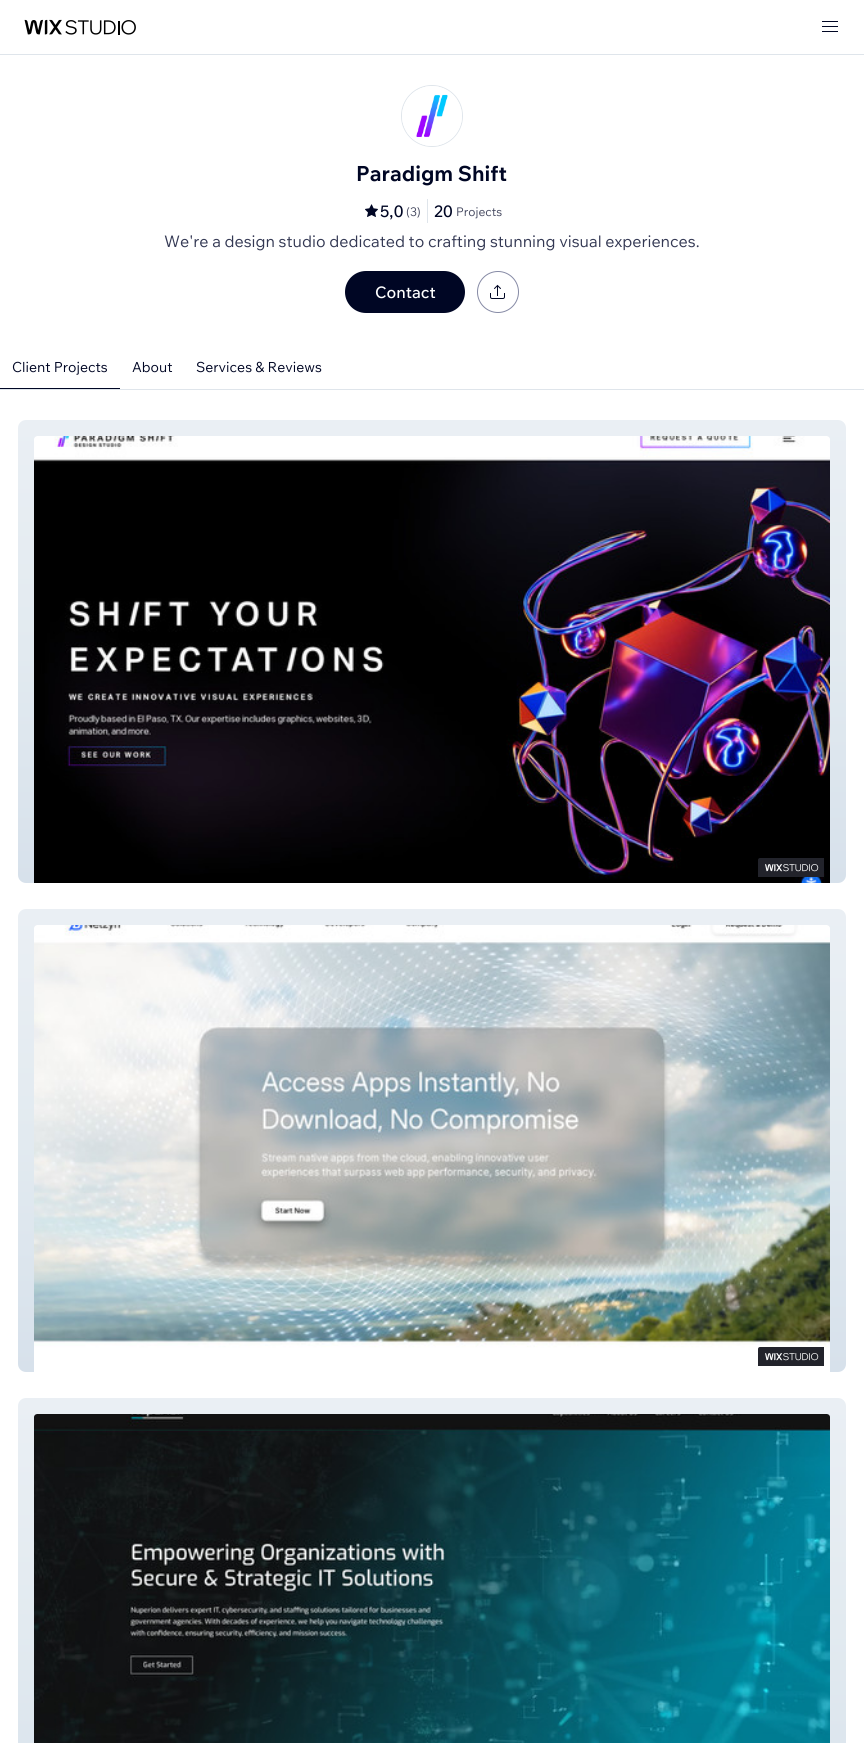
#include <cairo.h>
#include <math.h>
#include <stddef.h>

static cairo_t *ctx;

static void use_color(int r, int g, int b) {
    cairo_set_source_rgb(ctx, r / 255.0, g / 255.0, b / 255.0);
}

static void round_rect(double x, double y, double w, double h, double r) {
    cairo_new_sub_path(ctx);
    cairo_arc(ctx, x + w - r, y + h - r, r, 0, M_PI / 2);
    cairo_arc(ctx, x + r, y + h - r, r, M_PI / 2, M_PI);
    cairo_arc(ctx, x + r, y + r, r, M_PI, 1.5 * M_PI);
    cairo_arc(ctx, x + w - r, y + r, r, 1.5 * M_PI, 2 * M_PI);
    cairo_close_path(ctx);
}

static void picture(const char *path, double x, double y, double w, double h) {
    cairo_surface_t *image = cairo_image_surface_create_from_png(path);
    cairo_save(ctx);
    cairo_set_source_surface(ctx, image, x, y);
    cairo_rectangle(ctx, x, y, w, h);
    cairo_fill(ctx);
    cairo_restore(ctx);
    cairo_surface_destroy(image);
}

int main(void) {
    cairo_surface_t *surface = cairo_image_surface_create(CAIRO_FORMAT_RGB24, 864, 1743);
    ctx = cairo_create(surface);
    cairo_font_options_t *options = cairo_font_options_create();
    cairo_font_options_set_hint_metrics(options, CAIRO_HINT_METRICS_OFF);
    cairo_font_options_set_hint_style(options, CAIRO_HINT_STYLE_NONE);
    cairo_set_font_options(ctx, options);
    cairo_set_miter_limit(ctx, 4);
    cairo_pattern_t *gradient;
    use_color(255, 255, 255);
    cairo_paint(ctx);
    picture("img1.png", 24, 19, 38, 16);
    picture("img2.png", 65, 20, 71, 15);
    picture("img3.png", 822, 21, 16, 11);
    use_color(223, 229, 235);
    cairo_rectangle(ctx, 0, 54, 864, 1);
    cairo_fill(ctx);
    cairo_arc(ctx, 432, 116, 30.5, 0, 2 * M_PI);
    cairo_set_line_width(ctx, 1);
    cairo_stroke(ctx);
    picture("img4.png", 402, 86, 60, 60);
    cairo_select_font_face(ctx, "Wix Madefor Text", CAIRO_FONT_SLANT_NORMAL, CAIRO_FONT_WEIGHT_BOLD);
    cairo_set_font_size(ctx, 21);
    use_color(0, 6, 36);
    cairo_move_to(ctx, 356, 181);
    cairo_show_text(ctx, "Paradigm Shift");
    picture("img5.png", 365, 204, 13, 13);
    cairo_select_font_face(ctx, "Wix Madefor Text Medium", CAIRO_FONT_SLANT_NORMAL, CAIRO_FONT_WEIGHT_NORMAL);
    cairo_set_font_size(ctx, 16);
    cairo_move_to(ctx, 380, 217);
    cairo_show_text(ctx, "5,0");
    cairo_select_font_face(ctx, "Wix Madefor Text", CAIRO_FONT_SLANT_NORMAL, CAIRO_FONT_WEIGHT_NORMAL);
    cairo_set_font_size(ctx, 12);
    use_color(68, 72, 95);
    cairo_move_to(ctx, 406, 216);
    cairo_show_text(ctx, "(3)");
    use_color(223, 229, 235);
    cairo_rectangle(ctx, 427, 199, 1, 24);
    cairo_fill(ctx);
    cairo_select_font_face(ctx, "Wix Madefor Text Medium", CAIRO_FONT_SLANT_NORMAL, CAIRO_FONT_WEIGHT_NORMAL);
    cairo_set_font_size(ctx, 16);
    use_color(0, 6, 36);
    cairo_move_to(ctx, 434, 217);
    cairo_show_text(ctx, "20");
    cairo_select_font_face(ctx, "Wix Madefor Text", CAIRO_FONT_SLANT_NORMAL, CAIRO_FONT_WEIGHT_NORMAL);
    cairo_set_font_size(ctx, 12);
    use_color(68, 72, 95);
    cairo_move_to(ctx, 456, 216);
    cairo_show_text(ctx, "Projects");
    cairo_set_font_size(ctx, 16);
    use_color(51, 56, 83);
    cairo_move_to(ctx, 164, 247);
    cairo_show_text(ctx, "We're a design studio dedicated to crafting stunning visual experiences.");
    use_color(0, 6, 36);
    round_rect(345, 271, 120, 42, 21);
    cairo_fill(ctx);
    cairo_select_font_face(ctx, "Wix Madefor Text Medium", CAIRO_FONT_SLANT_NORMAL, CAIRO_FONT_WEIGHT_NORMAL);
    use_color(255, 255, 255);
    cairo_move_to(ctx, 375, 298);
    cairo_show_text(ctx, "Contact");
    cairo_new_path(ctx);
    cairo_arc(ctx, 498, 292, 20.5, 0, 2 * M_PI);
    use_color(134, 138, 165);
    cairo_stroke(ctx);
    picture("img6.png", 490, 284, 15, 15);
    use_color(223, 229, 235);
    cairo_rectangle(ctx, 0, 389, 864, 1);
    cairo_fill(ctx);
    cairo_select_font_face(ctx, "Wix Madefor Text", CAIRO_FONT_SLANT_NORMAL, CAIRO_FONT_WEIGHT_NORMAL);
    cairo_set_font_size(ctx, 14);
    use_color(0, 6, 36);
    cairo_move_to(ctx, 12, 372);
    cairo_show_text(ctx, "Client Projects");
    cairo_rectangle(ctx, 0, 388, 120, 1);
    cairo_fill(ctx);
    cairo_move_to(ctx, 132, 372);
    cairo_show_text(ctx, "About");
    cairo_move_to(ctx, 196, 372);
    cairo_show_text(ctx, "Services & Reviews");
    gradient = cairo_pattern_create_linear(432, 420, 432, 883);
    cairo_pattern_add_color_stop_rgba(gradient, 0, 0.918, 0.937, 0.957, 1);
    cairo_pattern_add_color_stop_rgba(gradient, 0.5, 0.886, 0.918, 0.941, 1);
    cairo_pattern_add_color_stop_rgba(gradient, 1, 0.843, 0.882, 0.922, 1);
    cairo_set_source(ctx, gradient);
    cairo_pattern_destroy(gradient);
    round_rect(18, 420, 828, 463, 8);
    cairo_fill(ctx);
    use_color(223, 229, 235);
    cairo_new_path(ctx);
    cairo_move_to(ctx, 37, 436);
    cairo_line_to(ctx, 827, 436);
    cairo_curve_to(ctx, 828.5, 436, 830, 437.5, 830, 439);
    cairo_line_to(ctx, 830, 883);
    cairo_line_to(ctx, 34, 883);
    cairo_line_to(ctx, 34, 439);
    cairo_curve_to(ctx, 34, 437.5, 35.5, 436, 37, 436);
    cairo_close_path(ctx);
    cairo_fill(ctx);
    picture("img7.png", 34, 436, 796, 447);
    picture("img8.png", 758, 858, 66, 19);
    gradient = cairo_pattern_create_linear(432, 909, 432, 1372);
    cairo_pattern_add_color_stop_rgba(gradient, 0, 0.918, 0.937, 0.957, 1);
    cairo_pattern_add_color_stop_rgba(gradient, 0.5, 0.886, 0.918, 0.941, 1);
    cairo_pattern_add_color_stop_rgba(gradient, 1, 0.843, 0.882, 0.922, 1);
    cairo_set_source(ctx, gradient);
    cairo_pattern_destroy(gradient);
    round_rect(18, 909, 828, 463, 8);
    cairo_fill(ctx);
    use_color(223, 229, 235);
    cairo_new_path(ctx);
    cairo_move_to(ctx, 37, 925);
    cairo_line_to(ctx, 827, 925);
    cairo_curve_to(ctx, 828.5, 925, 830, 926.5, 830, 928);
    cairo_line_to(ctx, 830, 1372);
    cairo_line_to(ctx, 34, 1372);
    cairo_line_to(ctx, 34, 928);
    cairo_curve_to(ctx, 34, 926.5, 35.5, 925, 37, 925);
    cairo_close_path(ctx);
    cairo_fill(ctx);
    picture("img9.png", 34, 925, 796, 447);
    picture("img10.png", 758, 1347, 66, 19);
    gradient = cairo_pattern_create_linear(432, 1398, 432, 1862);
    cairo_pattern_add_color_stop_rgba(gradient, 0, 0.918, 0.937, 0.957, 1);
    cairo_pattern_add_color_stop_rgba(gradient, 0.5, 0.886, 0.918, 0.941, 1);
    cairo_pattern_add_color_stop_rgba(gradient, 1, 0.843, 0.882, 0.922, 1);
    cairo_set_source(ctx, gradient);
    cairo_pattern_destroy(gradient);
    round_rect(18, 1398, 828, 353, 8);
    cairo_fill(ctx);
    use_color(223, 229, 235);
    cairo_new_path(ctx);
    cairo_move_to(ctx, 37, 1414);
    cairo_line_to(ctx, 827, 1414);
    cairo_curve_to(ctx, 828.5, 1414, 830, 1415.5, 830, 1417);
    cairo_line_to(ctx, 830, 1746);
    cairo_line_to(ctx, 34, 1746);
    cairo_line_to(ctx, 34, 1417);
    cairo_curve_to(ctx, 34, 1415.5, 35.5, 1414, 37, 1414);
    cairo_close_path(ctx);
    cairo_fill(ctx);
    picture("img11.png", 34, 1414, 796, 329);
    cairo_surface_write_to_png(surface, "result.png");
    cairo_font_options_destroy(options);
    cairo_destroy(ctx);
    cairo_surface_destroy(surface);
    return 0;
}
